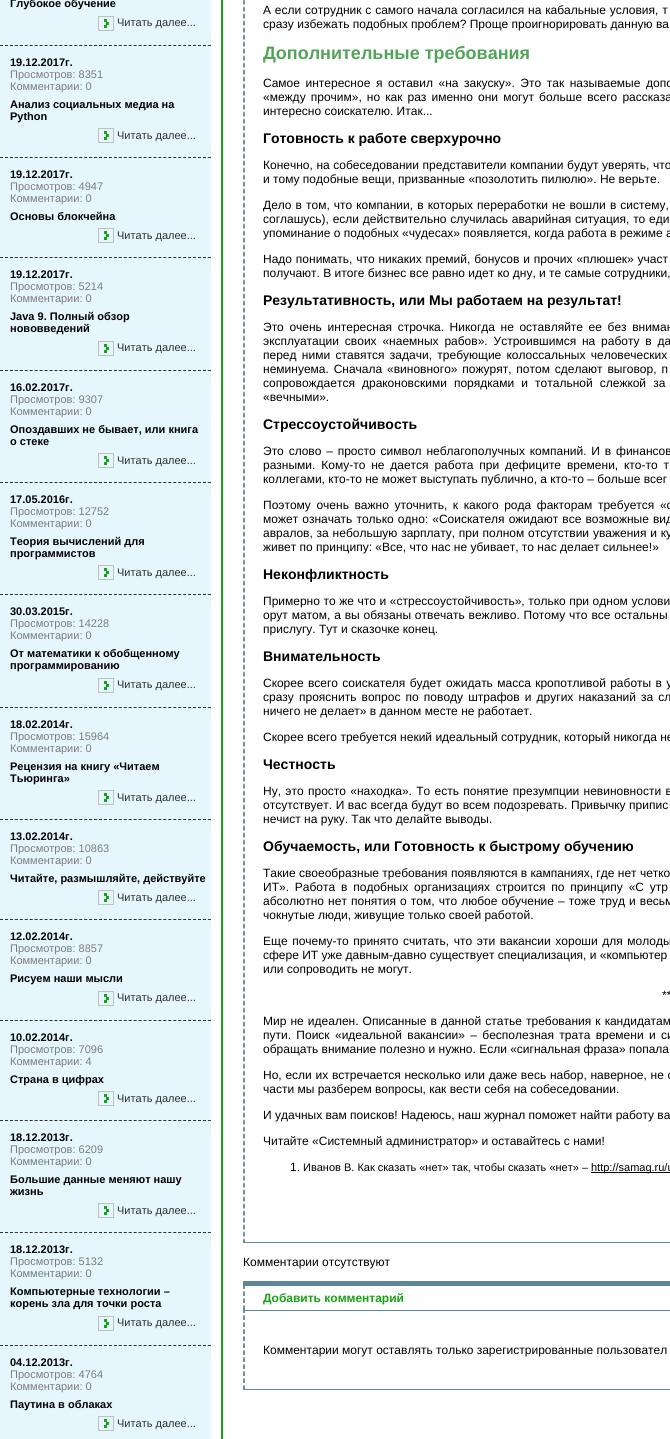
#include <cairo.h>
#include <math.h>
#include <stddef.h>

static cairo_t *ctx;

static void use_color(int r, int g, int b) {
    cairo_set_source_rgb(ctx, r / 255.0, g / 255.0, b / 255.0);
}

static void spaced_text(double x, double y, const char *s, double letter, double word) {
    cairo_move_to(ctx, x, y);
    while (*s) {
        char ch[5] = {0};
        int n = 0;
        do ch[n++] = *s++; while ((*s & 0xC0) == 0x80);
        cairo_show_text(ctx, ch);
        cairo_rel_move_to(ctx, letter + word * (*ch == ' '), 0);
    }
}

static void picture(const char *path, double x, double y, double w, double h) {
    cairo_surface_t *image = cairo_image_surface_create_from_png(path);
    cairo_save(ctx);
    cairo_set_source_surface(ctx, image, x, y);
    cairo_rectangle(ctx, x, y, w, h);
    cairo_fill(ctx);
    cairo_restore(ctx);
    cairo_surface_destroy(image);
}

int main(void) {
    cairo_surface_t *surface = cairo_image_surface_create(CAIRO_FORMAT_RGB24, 670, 1439);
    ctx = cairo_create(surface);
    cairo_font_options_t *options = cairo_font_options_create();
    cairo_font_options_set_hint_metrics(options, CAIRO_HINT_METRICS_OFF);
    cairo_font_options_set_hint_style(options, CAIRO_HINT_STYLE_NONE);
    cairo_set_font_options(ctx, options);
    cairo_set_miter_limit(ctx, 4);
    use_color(255, 255, 255);
    cairo_paint(ctx);
    use_color(22, 163, 22);
    cairo_rectangle(ctx, 221, 0, 2, 1439);
    cairo_fill(ctx);
    use_color(230, 246, 253);
    cairo_rectangle(ctx, 0, 0, 211, 1439);
    cairo_fill(ctx);
    cairo_new_path(ctx);
    cairo_move_to(ctx, 0, 45.5);
    cairo_line_to(ctx, 211, 45.5);
    use_color(47, 47, 47);
    cairo_set_line_width(ctx, 1);
    cairo_set_dash(ctx, (double[]){3, 1.95}, 2, 0);
    cairo_stroke(ctx);
    cairo_select_font_face(ctx, "Liberation Sans", CAIRO_FONT_SLANT_NORMAL, CAIRO_FONT_WEIGHT_BOLD);
    cairo_set_font_size(ctx, 11);
    use_color(0, 0, 0);
    cairo_move_to(ctx, 10, 7);
    cairo_show_text(ctx, "Глубокое обучение");
    picture("img1.png", 98, 16, 16, 15);
    cairo_select_font_face(ctx, "Liberation Sans", CAIRO_FONT_SLANT_NORMAL, CAIRO_FONT_WEIGHT_NORMAL);
    use_color(47, 47, 47);
    cairo_move_to(ctx, 117, 26);
    cairo_show_text(ctx, "Читать далее...");
    cairo_new_path(ctx);
    cairo_move_to(ctx, 0, 157.5);
    cairo_line_to(ctx, 211, 157.5);
    cairo_stroke(ctx);
    cairo_select_font_face(ctx, "Liberation Sans", CAIRO_FONT_SLANT_NORMAL, CAIRO_FONT_WEIGHT_BOLD);
    use_color(0, 0, 0);
    cairo_move_to(ctx, 10, 66);
    cairo_show_text(ctx, "19.12.2017г.");
    cairo_select_font_face(ctx, "Liberation Sans", CAIRO_FONT_SLANT_NORMAL, CAIRO_FONT_WEIGHT_NORMAL);
    use_color(124, 124, 124);
    cairo_move_to(ctx, 10, 78);
    cairo_show_text(ctx, "Просмотров: 8351");
    cairo_move_to(ctx, 10, 90);
    cairo_show_text(ctx, "Комментарии: 0");
    cairo_select_font_face(ctx, "Liberation Sans", CAIRO_FONT_SLANT_NORMAL, CAIRO_FONT_WEIGHT_BOLD);
    use_color(0, 0, 0);
    cairo_move_to(ctx, 10, 108);
    cairo_show_text(ctx, "Анализ социальных медиа на");
    cairo_move_to(ctx, 10, 120);
    cairo_show_text(ctx, "Python");
    picture("img1.png", 98, 128, 16, 15);
    cairo_select_font_face(ctx, "Liberation Sans", CAIRO_FONT_SLANT_NORMAL, CAIRO_FONT_WEIGHT_NORMAL);
    use_color(47, 47, 47);
    cairo_move_to(ctx, 117, 139);
    cairo_show_text(ctx, "Читать далее...");
    cairo_new_path(ctx);
    cairo_move_to(ctx, 0, 257.5);
    cairo_line_to(ctx, 211, 257.5);
    cairo_stroke(ctx);
    cairo_select_font_face(ctx, "Liberation Sans", CAIRO_FONT_SLANT_NORMAL, CAIRO_FONT_WEIGHT_BOLD);
    use_color(0, 0, 0);
    cairo_move_to(ctx, 10, 178);
    cairo_show_text(ctx, "19.12.2017г.");
    cairo_select_font_face(ctx, "Liberation Sans", CAIRO_FONT_SLANT_NORMAL, CAIRO_FONT_WEIGHT_NORMAL);
    use_color(124, 124, 124);
    cairo_move_to(ctx, 10, 190);
    cairo_show_text(ctx, "Просмотров: 4947");
    cairo_move_to(ctx, 10, 202);
    cairo_show_text(ctx, "Комментарии: 0");
    cairo_select_font_face(ctx, "Liberation Sans", CAIRO_FONT_SLANT_NORMAL, CAIRO_FONT_WEIGHT_BOLD);
    use_color(0, 0, 0);
    cairo_move_to(ctx, 10, 220);
    cairo_show_text(ctx, "Основы блокчейна");
    picture("img1.png", 98, 228, 16, 15);
    cairo_select_font_face(ctx, "Liberation Sans", CAIRO_FONT_SLANT_NORMAL, CAIRO_FONT_WEIGHT_NORMAL);
    use_color(47, 47, 47);
    cairo_move_to(ctx, 117, 239);
    cairo_show_text(ctx, "Читать далее...");
    cairo_new_path(ctx);
    cairo_move_to(ctx, 0, 370.5);
    cairo_line_to(ctx, 211, 370.5);
    cairo_stroke(ctx);
    cairo_select_font_face(ctx, "Liberation Sans", CAIRO_FONT_SLANT_NORMAL, CAIRO_FONT_WEIGHT_BOLD);
    use_color(0, 0, 0);
    cairo_move_to(ctx, 10, 278);
    cairo_show_text(ctx, "19.12.2017г.");
    cairo_select_font_face(ctx, "Liberation Sans", CAIRO_FONT_SLANT_NORMAL, CAIRO_FONT_WEIGHT_NORMAL);
    use_color(124, 124, 124);
    cairo_move_to(ctx, 10, 290);
    cairo_show_text(ctx, "Просмотров: 5214");
    cairo_move_to(ctx, 10, 302);
    cairo_show_text(ctx, "Комментарии: 0");
    cairo_select_font_face(ctx, "Liberation Sans", CAIRO_FONT_SLANT_NORMAL, CAIRO_FONT_WEIGHT_BOLD);
    use_color(0, 0, 0);
    cairo_move_to(ctx, 10, 320);
    cairo_show_text(ctx, "Java 9. Полный обзор");
    cairo_move_to(ctx, 10, 332);
    cairo_show_text(ctx, "нововведений");
    picture("img1.png", 98, 341, 16, 15);
    cairo_select_font_face(ctx, "Liberation Sans", CAIRO_FONT_SLANT_NORMAL, CAIRO_FONT_WEIGHT_NORMAL);
    use_color(47, 47, 47);
    cairo_move_to(ctx, 117, 351);
    cairo_show_text(ctx, "Читать далее...");
    cairo_new_path(ctx);
    cairo_move_to(ctx, 0, 482.5);
    cairo_line_to(ctx, 211, 482.5);
    cairo_stroke(ctx);
    cairo_select_font_face(ctx, "Liberation Sans", CAIRO_FONT_SLANT_NORMAL, CAIRO_FONT_WEIGHT_BOLD);
    use_color(0, 0, 0);
    cairo_move_to(ctx, 10, 391);
    cairo_show_text(ctx, "16.02.2017г.");
    cairo_select_font_face(ctx, "Liberation Sans", CAIRO_FONT_SLANT_NORMAL, CAIRO_FONT_WEIGHT_NORMAL);
    use_color(124, 124, 124);
    cairo_move_to(ctx, 10, 403);
    cairo_show_text(ctx, "Просмотров: 9307");
    cairo_move_to(ctx, 10, 415);
    cairo_show_text(ctx, "Комментарии: 0");
    cairo_select_font_face(ctx, "Liberation Sans", CAIRO_FONT_SLANT_NORMAL, CAIRO_FONT_WEIGHT_BOLD);
    use_color(0, 0, 0);
    cairo_move_to(ctx, 10, 433);
    cairo_show_text(ctx, "Опоздавших не бывает, или книга");
    cairo_move_to(ctx, 10, 445);
    cairo_show_text(ctx, "о стеке");
    picture("img1.png", 98, 453, 16, 15);
    cairo_select_font_face(ctx, "Liberation Sans", CAIRO_FONT_SLANT_NORMAL, CAIRO_FONT_WEIGHT_NORMAL);
    use_color(47, 47, 47);
    cairo_move_to(ctx, 117, 464);
    cairo_show_text(ctx, "Читать далее...");
    cairo_new_path(ctx);
    cairo_move_to(ctx, 0, 594.5);
    cairo_line_to(ctx, 211, 594.5);
    cairo_stroke(ctx);
    cairo_select_font_face(ctx, "Liberation Sans", CAIRO_FONT_SLANT_NORMAL, CAIRO_FONT_WEIGHT_BOLD);
    use_color(0, 0, 0);
    cairo_move_to(ctx, 10, 503);
    cairo_show_text(ctx, "17.05.2016г.");
    cairo_select_font_face(ctx, "Liberation Sans", CAIRO_FONT_SLANT_NORMAL, CAIRO_FONT_WEIGHT_NORMAL);
    use_color(124, 124, 124);
    cairo_move_to(ctx, 10, 515);
    cairo_show_text(ctx, "Просмотров: 12752");
    cairo_move_to(ctx, 10, 527);
    cairo_show_text(ctx, "Комментарии: 0");
    cairo_select_font_face(ctx, "Liberation Sans", CAIRO_FONT_SLANT_NORMAL, CAIRO_FONT_WEIGHT_BOLD);
    use_color(0, 0, 0);
    cairo_move_to(ctx, 10, 545);
    cairo_show_text(ctx, "Теория вычислений для");
    cairo_move_to(ctx, 10, 557);
    cairo_show_text(ctx, "программистов");
    picture("img1.png", 98, 565, 16, 15);
    cairo_select_font_face(ctx, "Liberation Sans", CAIRO_FONT_SLANT_NORMAL, CAIRO_FONT_WEIGHT_NORMAL);
    use_color(47, 47, 47);
    cairo_move_to(ctx, 117, 576);
    cairo_show_text(ctx, "Читать далее...");
    cairo_new_path(ctx);
    cairo_move_to(ctx, 0, 707.5);
    cairo_line_to(ctx, 211, 707.5);
    cairo_stroke(ctx);
    cairo_select_font_face(ctx, "Liberation Sans", CAIRO_FONT_SLANT_NORMAL, CAIRO_FONT_WEIGHT_BOLD);
    use_color(0, 0, 0);
    cairo_move_to(ctx, 10, 615);
    cairo_show_text(ctx, "30.03.2015г.");
    cairo_select_font_face(ctx, "Liberation Sans", CAIRO_FONT_SLANT_NORMAL, CAIRO_FONT_WEIGHT_NORMAL);
    use_color(124, 124, 124);
    cairo_move_to(ctx, 10, 627);
    cairo_show_text(ctx, "Просмотров: 14228");
    cairo_move_to(ctx, 10, 639);
    cairo_show_text(ctx, "Комментарии: 0");
    cairo_select_font_face(ctx, "Liberation Sans", CAIRO_FONT_SLANT_NORMAL, CAIRO_FONT_WEIGHT_BOLD);
    use_color(0, 0, 0);
    cairo_move_to(ctx, 10, 657);
    cairo_show_text(ctx, "От математики к обобщенному");
    cairo_move_to(ctx, 10, 669);
    cairo_show_text(ctx, "программированию");
    picture("img1.png", 98, 678, 16, 15);
    cairo_select_font_face(ctx, "Liberation Sans", CAIRO_FONT_SLANT_NORMAL, CAIRO_FONT_WEIGHT_NORMAL);
    use_color(47, 47, 47);
    cairo_move_to(ctx, 117, 688);
    cairo_show_text(ctx, "Читать далее...");
    cairo_new_path(ctx);
    cairo_move_to(ctx, 0, 819.5);
    cairo_line_to(ctx, 211, 819.5);
    cairo_stroke(ctx);
    cairo_select_font_face(ctx, "Liberation Sans", CAIRO_FONT_SLANT_NORMAL, CAIRO_FONT_WEIGHT_BOLD);
    use_color(0, 0, 0);
    cairo_move_to(ctx, 10, 728);
    cairo_show_text(ctx, "18.02.2014г.");
    cairo_select_font_face(ctx, "Liberation Sans", CAIRO_FONT_SLANT_NORMAL, CAIRO_FONT_WEIGHT_NORMAL);
    use_color(124, 124, 124);
    cairo_move_to(ctx, 10, 740);
    cairo_show_text(ctx, "Просмотров: 15964");
    cairo_move_to(ctx, 10, 752);
    cairo_show_text(ctx, "Комментарии: 0");
    cairo_select_font_face(ctx, "Liberation Sans", CAIRO_FONT_SLANT_NORMAL, CAIRO_FONT_WEIGHT_BOLD);
    use_color(0, 0, 0);
    cairo_move_to(ctx, 10, 770);
    cairo_show_text(ctx, "Рецензия на книгу «Читаем");
    cairo_move_to(ctx, 10, 782);
    cairo_show_text(ctx, "Тьюринга»");
    picture("img1.png", 98, 790, 16, 15);
    cairo_select_font_face(ctx, "Liberation Sans", CAIRO_FONT_SLANT_NORMAL, CAIRO_FONT_WEIGHT_NORMAL);
    use_color(47, 47, 47);
    cairo_move_to(ctx, 117, 801);
    cairo_show_text(ctx, "Читать далее...");
    cairo_new_path(ctx);
    cairo_move_to(ctx, 0, 919.5);
    cairo_line_to(ctx, 211, 919.5);
    cairo_stroke(ctx);
    cairo_select_font_face(ctx, "Liberation Sans", CAIRO_FONT_SLANT_NORMAL, CAIRO_FONT_WEIGHT_BOLD);
    use_color(0, 0, 0);
    cairo_move_to(ctx, 10, 840);
    cairo_show_text(ctx, "13.02.2014г.");
    cairo_select_font_face(ctx, "Liberation Sans", CAIRO_FONT_SLANT_NORMAL, CAIRO_FONT_WEIGHT_NORMAL);
    use_color(124, 124, 124);
    cairo_move_to(ctx, 10, 852);
    cairo_show_text(ctx, "Просмотров: 10863");
    cairo_move_to(ctx, 10, 864);
    cairo_show_text(ctx, "Комментарии: 0");
    cairo_select_font_face(ctx, "Liberation Sans", CAIRO_FONT_SLANT_NORMAL, CAIRO_FONT_WEIGHT_BOLD);
    use_color(0, 0, 0);
    cairo_move_to(ctx, 10, 882);
    cairo_show_text(ctx, "Читайте, размышляйте, действуйте");
    picture("img1.png", 98, 890, 16, 15);
    cairo_select_font_face(ctx, "Liberation Sans", CAIRO_FONT_SLANT_NORMAL, CAIRO_FONT_WEIGHT_NORMAL);
    use_color(47, 47, 47);
    cairo_move_to(ctx, 117, 901);
    cairo_show_text(ctx, "Читать далее...");
    cairo_new_path(ctx);
    cairo_move_to(ctx, 0, 1020.5);
    cairo_line_to(ctx, 211, 1020.5);
    cairo_stroke(ctx);
    cairo_select_font_face(ctx, "Liberation Sans", CAIRO_FONT_SLANT_NORMAL, CAIRO_FONT_WEIGHT_BOLD);
    use_color(0, 0, 0);
    cairo_move_to(ctx, 10, 940);
    cairo_show_text(ctx, "12.02.2014г.");
    cairo_select_font_face(ctx, "Liberation Sans", CAIRO_FONT_SLANT_NORMAL, CAIRO_FONT_WEIGHT_NORMAL);
    use_color(124, 124, 124);
    cairo_move_to(ctx, 10, 952);
    cairo_show_text(ctx, "Просмотров: 8857");
    cairo_move_to(ctx, 10, 964);
    cairo_show_text(ctx, "Комментарии: 0");
    cairo_select_font_face(ctx, "Liberation Sans", CAIRO_FONT_SLANT_NORMAL, CAIRO_FONT_WEIGHT_BOLD);
    use_color(0, 0, 0);
    cairo_move_to(ctx, 10, 982);
    cairo_show_text(ctx, "Рисуем наши мысли");
    picture("img1.png", 98, 991, 16, 15);
    cairo_select_font_face(ctx, "Liberation Sans", CAIRO_FONT_SLANT_NORMAL, CAIRO_FONT_WEIGHT_NORMAL);
    use_color(47, 47, 47);
    cairo_move_to(ctx, 117, 1001);
    cairo_show_text(ctx, "Читать далее...");
    cairo_new_path(ctx);
    cairo_move_to(ctx, 0, 1120.5);
    cairo_line_to(ctx, 211, 1120.5);
    cairo_stroke(ctx);
    cairo_select_font_face(ctx, "Liberation Sans", CAIRO_FONT_SLANT_NORMAL, CAIRO_FONT_WEIGHT_BOLD);
    use_color(0, 0, 0);
    cairo_move_to(ctx, 10, 1041);
    cairo_show_text(ctx, "10.02.2014г.");
    cairo_select_font_face(ctx, "Liberation Sans", CAIRO_FONT_SLANT_NORMAL, CAIRO_FONT_WEIGHT_NORMAL);
    use_color(124, 124, 124);
    cairo_move_to(ctx, 10, 1053);
    cairo_show_text(ctx, "Просмотров: 7096");
    cairo_move_to(ctx, 10, 1065);
    cairo_show_text(ctx, "Комментарии: 4");
    cairo_select_font_face(ctx, "Liberation Sans", CAIRO_FONT_SLANT_NORMAL, CAIRO_FONT_WEIGHT_BOLD);
    use_color(0, 0, 0);
    cairo_move_to(ctx, 10, 1083);
    cairo_show_text(ctx, "Страна в цифрах");
    picture("img1.png", 98, 1091, 16, 15);
    cairo_select_font_face(ctx, "Liberation Sans", CAIRO_FONT_SLANT_NORMAL, CAIRO_FONT_WEIGHT_NORMAL);
    use_color(47, 47, 47);
    cairo_move_to(ctx, 117, 1102);
    cairo_show_text(ctx, "Читать далее...");
    cairo_new_path(ctx);
    cairo_move_to(ctx, 0, 1232.5);
    cairo_line_to(ctx, 211, 1232.5);
    cairo_stroke(ctx);
    cairo_select_font_face(ctx, "Liberation Sans", CAIRO_FONT_SLANT_NORMAL, CAIRO_FONT_WEIGHT_BOLD);
    use_color(0, 0, 0);
    cairo_move_to(ctx, 10, 1141);
    cairo_show_text(ctx, "18.12.2013г.");
    cairo_select_font_face(ctx, "Liberation Sans", CAIRO_FONT_SLANT_NORMAL, CAIRO_FONT_WEIGHT_NORMAL);
    use_color(124, 124, 124);
    cairo_move_to(ctx, 10, 1153);
    cairo_show_text(ctx, "Просмотров: 6209");
    cairo_move_to(ctx, 10, 1165);
    cairo_show_text(ctx, "Комментарии: 0");
    cairo_select_font_face(ctx, "Liberation Sans", CAIRO_FONT_SLANT_NORMAL, CAIRO_FONT_WEIGHT_BOLD);
    use_color(0, 0, 0);
    cairo_move_to(ctx, 10, 1183);
    cairo_show_text(ctx, "Большие данные меняют нашу");
    cairo_move_to(ctx, 10, 1195);
    cairo_show_text(ctx, "жизнь");
    picture("img1.png", 98, 1203, 16, 15);
    cairo_select_font_face(ctx, "Liberation Sans", CAIRO_FONT_SLANT_NORMAL, CAIRO_FONT_WEIGHT_NORMAL);
    use_color(47, 47, 47);
    cairo_move_to(ctx, 117, 1214);
    cairo_show_text(ctx, "Читать далее...");
    cairo_new_path(ctx);
    cairo_move_to(ctx, 0, 1345.5);
    cairo_line_to(ctx, 211, 1345.5);
    cairo_stroke(ctx);
    cairo_select_font_face(ctx, "Liberation Sans", CAIRO_FONT_SLANT_NORMAL, CAIRO_FONT_WEIGHT_BOLD);
    use_color(0, 0, 0);
    cairo_move_to(ctx, 10, 1253);
    cairo_show_text(ctx, "18.12.2013г.");
    cairo_select_font_face(ctx, "Liberation Sans", CAIRO_FONT_SLANT_NORMAL, CAIRO_FONT_WEIGHT_NORMAL);
    use_color(124, 124, 124);
    cairo_move_to(ctx, 10, 1265);
    cairo_show_text(ctx, "Просмотров: 5132");
    cairo_move_to(ctx, 10, 1277);
    cairo_show_text(ctx, "Комментарии: 0");
    cairo_select_font_face(ctx, "Liberation Sans", CAIRO_FONT_SLANT_NORMAL, CAIRO_FONT_WEIGHT_BOLD);
    use_color(0, 0, 0);
    cairo_move_to(ctx, 10, 1295);
    cairo_show_text(ctx, "Компьютерные технологии –");
    cairo_move_to(ctx, 10, 1307);
    cairo_show_text(ctx, "корень зла для точки роста");
    picture("img1.png", 98, 1316, 16, 15);
    cairo_select_font_face(ctx, "Liberation Sans", CAIRO_FONT_SLANT_NORMAL, CAIRO_FONT_WEIGHT_NORMAL);
    use_color(47, 47, 47);
    cairo_move_to(ctx, 117, 1326);
    cairo_show_text(ctx, "Читать далее...");
    cairo_select_font_face(ctx, "Liberation Sans", CAIRO_FONT_SLANT_NORMAL, CAIRO_FONT_WEIGHT_BOLD);
    use_color(0, 0, 0);
    cairo_move_to(ctx, 10, 1366);
    cairo_show_text(ctx, "04.12.2013г.");
    cairo_select_font_face(ctx, "Liberation Sans", CAIRO_FONT_SLANT_NORMAL, CAIRO_FONT_WEIGHT_NORMAL);
    use_color(124, 124, 124);
    cairo_move_to(ctx, 10, 1378);
    cairo_show_text(ctx, "Просмотров: 4764");
    cairo_move_to(ctx, 10, 1390);
    cairo_show_text(ctx, "Комментарии: 0");
    cairo_select_font_face(ctx, "Liberation Sans", CAIRO_FONT_SLANT_NORMAL, CAIRO_FONT_WEIGHT_BOLD);
    use_color(0, 0, 0);
    cairo_move_to(ctx, 10, 1408);
    cairo_show_text(ctx, "Паутина в облаках");
    picture("img1.png", 98, 1416, 16, 15);
    cairo_select_font_face(ctx, "Liberation Sans", CAIRO_FONT_SLANT_NORMAL, CAIRO_FONT_WEIGHT_NORMAL);
    use_color(47, 47, 47);
    cairo_move_to(ctx, 117, 1427);
    cairo_show_text(ctx, "Читать далее...");
    picture("img2.png", 243, 0, 2, 1242);
    use_color(93, 135, 151);
    cairo_rectangle(ctx, 243, 1242, 427, 1);
    cairo_fill(ctx);
    cairo_set_font_size(ctx, 12);
    use_color(0, 0, 0);
    spaced_text(263, 14, "А если сотрудник с самого начала согласился на кабальные условия, т", 0, 0.5);
    cairo_move_to(ctx, 263, 28);
    cairo_show_text(ctx, "сразу избежать подобных проблем? Проще проигнорировать данную ва");
    cairo_select_font_face(ctx, "Liberation Sans", CAIRO_FONT_SLANT_NORMAL, CAIRO_FONT_WEIGHT_BOLD);
    cairo_set_font_size(ctx, 18);
    use_color(82, 165, 88);
    cairo_move_to(ctx, 263, 59);
    cairo_show_text(ctx, "Дополнительные требования");
    cairo_select_font_face(ctx, "Liberation Sans", CAIRO_FONT_SLANT_NORMAL, CAIRO_FONT_WEIGHT_NORMAL);
    cairo_set_font_size(ctx, 12);
    use_color(0, 0, 0);
    spaced_text(263, 87, "Самое интересное я оставил «на закуску». Это так называемые допо", 0, 2.25);
    spaced_text(263, 101, "«между прочим», но как раз именно они могут больше всего рассказа", 0, 1.75);
    cairo_move_to(ctx, 263, 115);
    cairo_show_text(ctx, "интересно соискателю. Итак...");
    cairo_select_font_face(ctx, "Liberation Sans", CAIRO_FONT_SLANT_NORMAL, CAIRO_FONT_WEIGHT_BOLD);
    cairo_set_font_size(ctx, 14);
    cairo_move_to(ctx, 263, 143);
    cairo_show_text(ctx, "Готовность к работе сверхурочно");
    cairo_select_font_face(ctx, "Liberation Sans", CAIRO_FONT_SLANT_NORMAL, CAIRO_FONT_WEIGHT_NORMAL);
    cairo_set_font_size(ctx, 12);
    spaced_text(263, 169, "Конечно, на собеседовании представители компании будут уверять, что", 0, 0.25);
    cairo_move_to(ctx, 263, 183);
    cairo_show_text(ctx, "и тому подобные вещи, призванные «позолотить пилюлю». Не верьте.");
    spaced_text(263, 209, "Дело в том, что компании, в которых переработки не вошли в систему,", 0, 0.75);
    spaced_text(263, 223, "соглашусь), если действительно случилась аварийная ситуация, то еди", 0, 0.4);
    cairo_move_to(ctx, 263, 237);
    cairo_show_text(ctx, "упоминание о подобных «чудесах» появляется, когда работа в режиме а");
    spaced_text(263, 263, "Надо понимать, что никаких премий, бонусов и прочих «плюшек» участ", 0, 0.5);
    cairo_move_to(ctx, 263, 277);
    cairo_show_text(ctx, "получают. В итоге бизнес все равно идет ко дну, и те самые сотрудники,");
    cairo_select_font_face(ctx, "Liberation Sans", CAIRO_FONT_SLANT_NORMAL, CAIRO_FONT_WEIGHT_BOLD);
    cairo_set_font_size(ctx, 14);
    cairo_move_to(ctx, 263, 305);
    cairo_show_text(ctx, "Результативность, или Мы работаем на результат!");
    cairo_select_font_face(ctx, "Liberation Sans", CAIRO_FONT_SLANT_NORMAL, CAIRO_FONT_WEIGHT_NORMAL);
    cairo_set_font_size(ctx, 12);
    spaced_text(263, 331, "Это очень интересная строчка. Никогда не оставляйте ее без вниман", 0, 2.25);
    spaced_text(263, 345, "эксплуатации своих «наемных рабов». Устроившимся на работу в да", 0, 2.5);
    spaced_text(263, 359, "перед ними ставятся задачи, требующие колоссальных человеческих", 0, 2);
    spaced_text(263, 373, "неминуема. Сначала «виновного» пожурят, потом сделают выговор, п", 0, 1.5);
    spaced_text(263, 387, "сопровождается драконовскими порядками и тотальной слежкой за", 0, 3.75);
    cairo_move_to(ctx, 263, 401);
    cairo_show_text(ctx, "«вечными».");
    cairo_select_font_face(ctx, "Liberation Sans", CAIRO_FONT_SLANT_NORMAL, CAIRO_FONT_WEIGHT_BOLD);
    cairo_set_font_size(ctx, 14);
    cairo_move_to(ctx, 263, 429);
    cairo_show_text(ctx, "Стрессоустойчивость");
    cairo_select_font_face(ctx, "Liberation Sans", CAIRO_FONT_SLANT_NORMAL, CAIRO_FONT_WEIGHT_NORMAL);
    cairo_set_font_size(ctx, 12);
    spaced_text(263, 455, "Это слово – просто символ неблагополучных компаний. И в финансов", 0, 1.5);
    spaced_text(263, 469, "разными. Кому-то не дается работа при дефиците времени, кто-то т", 0, 2.5);
    cairo_move_to(ctx, 263, 483);
    cairo_show_text(ctx, "коллегами, кто-то не может выступать публично, а кто-то – больше всег");
    spaced_text(263, 509, "Поэтому очень важно уточнить, к какого рода факторам требуется «с", 0, 2.25);
    spaced_text(263, 523, "может означать только одно: «Соискателя ожидают все возможные вид", 0, 0.75);
    spaced_text(263, 537, "авралов, за небольшую зарплату, при полном отсутствии уважения и ку", 0, 0.5);
    cairo_move_to(ctx, 263, 551);
    cairo_show_text(ctx, "живет по принципу: «Все, что нас не убивает, то нас делает сильнее!»");
    cairo_select_font_face(ctx, "Liberation Sans", CAIRO_FONT_SLANT_NORMAL, CAIRO_FONT_WEIGHT_BOLD);
    cairo_set_font_size(ctx, 14);
    cairo_move_to(ctx, 263, 579);
    cairo_show_text(ctx, "Неконфликтность");
    cairo_select_font_face(ctx, "Liberation Sans", CAIRO_FONT_SLANT_NORMAL, CAIRO_FONT_WEIGHT_NORMAL);
    cairo_set_font_size(ctx, 12);
    spaced_text(263, 605, "Примерно то же что и «стрессоустойчивость», только при одном услови", 0, 0.25);
    spaced_text(263, 619, "орут матом, а вы обязаны отвечать вежливо. Потому что все остальны", 0, 0.5);
    cairo_move_to(ctx, 263, 633);
    cairo_show_text(ctx, "прислугу. Тут и сказочке конец.");
    cairo_select_font_face(ctx, "Liberation Sans", CAIRO_FONT_SLANT_NORMAL, CAIRO_FONT_WEIGHT_BOLD);
    cairo_set_font_size(ctx, 14);
    cairo_move_to(ctx, 263, 661);
    cairo_show_text(ctx, "Внимательность");
    cairo_select_font_face(ctx, "Liberation Sans", CAIRO_FONT_SLANT_NORMAL, CAIRO_FONT_WEIGHT_NORMAL);
    cairo_set_font_size(ctx, 12);
    spaced_text(263, 687, "Скорее всего соискателя будет ожидать масса кропотливой работы в у", 0, 1);
    spaced_text(263, 701, "сразу прояснить вопрос по поводу штрафов и других наказаний за сл", 0, 1.8);
    cairo_move_to(ctx, 263, 715);
    cairo_show_text(ctx, "ничего не делает» в данном месте не работает.");
    cairo_move_to(ctx, 263, 741);
    cairo_show_text(ctx, "Скорее всего требуется некий идеальный сотрудник, который никогда не");
    cairo_select_font_face(ctx, "Liberation Sans", CAIRO_FONT_SLANT_NORMAL, CAIRO_FONT_WEIGHT_BOLD);
    cairo_set_font_size(ctx, 14);
    cairo_move_to(ctx, 263, 769);
    cairo_show_text(ctx, "Честность");
    cairo_select_font_face(ctx, "Liberation Sans", CAIRO_FONT_SLANT_NORMAL, CAIRO_FONT_WEIGHT_NORMAL);
    cairo_set_font_size(ctx, 12);
    spaced_text(263, 795, "Ну, это просто «находка». То есть понятие презумпции невиновности в", 0, 1);
    spaced_text(263, 809, "отсутствует. И вас всегда будут во всем подозревать. Привычку припис", 0, 0.25);
    cairo_move_to(ctx, 263, 823);
    cairo_show_text(ctx, "нечист на руку. Так что делайте выводы.");
    cairo_select_font_face(ctx, "Liberation Sans", CAIRO_FONT_SLANT_NORMAL, CAIRO_FONT_WEIGHT_BOLD);
    cairo_set_font_size(ctx, 14);
    cairo_move_to(ctx, 263, 851);
    cairo_show_text(ctx, "Обучаемость, или Готовность к быстрому обучению");
    cairo_select_font_face(ctx, "Liberation Sans", CAIRO_FONT_SLANT_NORMAL, CAIRO_FONT_WEIGHT_NORMAL);
    cairo_set_font_size(ctx, 12);
    cairo_move_to(ctx, 263, 877);
    cairo_show_text(ctx, "Такие своеобразные требования появляются в кампаниях, где нет четко");
    spaced_text(263, 891, "ИТ». Работа в подобных организациях строится по принципу «С утр", 0, 2.5);
    spaced_text(263, 905, "абсолютно нет понятия о том, что любое обучение – тоже труд и весьм", 0, 0.75);
    cairo_move_to(ctx, 263, 919);
    cairo_show_text(ctx, "чокнутые люди, живущие только своей работой.");
    spaced_text(263, 945, "Еще почему-то принято считать, что эти вакансии хороши для молоды", 0, 1.25);
    cairo_move_to(ctx, 263, 959);
    cairo_show_text(ctx, "сфере ИТ уже давным-давно существует специализация, и «компьютер");
    cairo_move_to(ctx, 263, 973);
    cairo_show_text(ctx, "или сопроводить не могут.");
    cairo_move_to(ctx, 662, 999);
    cairo_show_text(ctx, "**");
    spaced_text(263, 1025, "Мир не идеален. Описанные в данной статье требования к кандидатам", 0, 0.75);
    spaced_text(263, 1039, "пути. Поиск «идеальной вакансии» – бесполезная трата времени и си", 0, 2);
    cairo_move_to(ctx, 263, 1053);
    cairo_show_text(ctx, "обращать внимание полезно и нужно. Если «сигнальная фраза» попала");
    spaced_text(263, 1079, "Но, если их встречается несколько или даже весь набор, наверное, не с", 0, 0.4);
    cairo_move_to(ctx, 263, 1093);
    cairo_show_text(ctx, "части мы разберем вопросы, как вести себя на собеседовании.");
    cairo_move_to(ctx, 263, 1119);
    cairo_show_text(ctx, "И удачных вам поисков! Надеюсь, наш журнал поможет найти работу ва");
    cairo_move_to(ctx, 263, 1145);
    cairo_show_text(ctx, "Читайте «Системный администратор» и оставайтесь с нами!");
    cairo_move_to(ctx, 290, 1171);
    cairo_show_text(ctx, "1.");
    cairo_set_font_size(ctx, 11);
    cairo_move_to(ctx, 303, 1171);
    cairo_show_text(ctx, "Иванов В. Как сказать «нет» так, чтобы сказать «нет» –");
    cairo_rectangle(ctx, 591, 1172, 79, 1);
    cairo_fill(ctx);
    cairo_move_to(ctx, 591, 1171);
    cairo_show_text(ctx, "http://samag.ru/u");
    cairo_set_font_size(ctx, 12);
    cairo_move_to(ctx, 243, 1266);
    cairo_show_text(ctx, "Комментарии отсутствуют");
    use_color(93, 135, 151);
    cairo_rectangle(ctx, 243, 1281, 427, 5);
    cairo_fill(ctx);
    picture("img3.png", 243, 1286, 2, 24);
    cairo_rectangle(ctx, 243, 1310, 427, 1);
    cairo_fill(ctx);
    cairo_select_font_face(ctx, "Liberation Sans", CAIRO_FONT_SLANT_NORMAL, CAIRO_FONT_WEIGHT_BOLD);
    use_color(22, 163, 22);
    cairo_move_to(ctx, 263, 1302);
    cairo_show_text(ctx, "Добавить комментарий");
    picture("img4.png", 243, 1311, 2, 78);
    use_color(93, 135, 151);
    cairo_rectangle(ctx, 243, 1389, 427, 1);
    cairo_fill(ctx);
    cairo_select_font_face(ctx, "Liberation Sans", CAIRO_FONT_SLANT_NORMAL, CAIRO_FONT_WEIGHT_NORMAL);
    use_color(0, 0, 0);
    cairo_move_to(ctx, 263, 1354);
    cairo_show_text(ctx, "Комментарии могут оставлять только зарегистрированные пользовател");
    cairo_surface_write_to_png(surface, "result.png");
    cairo_font_options_destroy(options);
    cairo_destroy(ctx);
    cairo_surface_destroy(surface);
    return 0;
}
